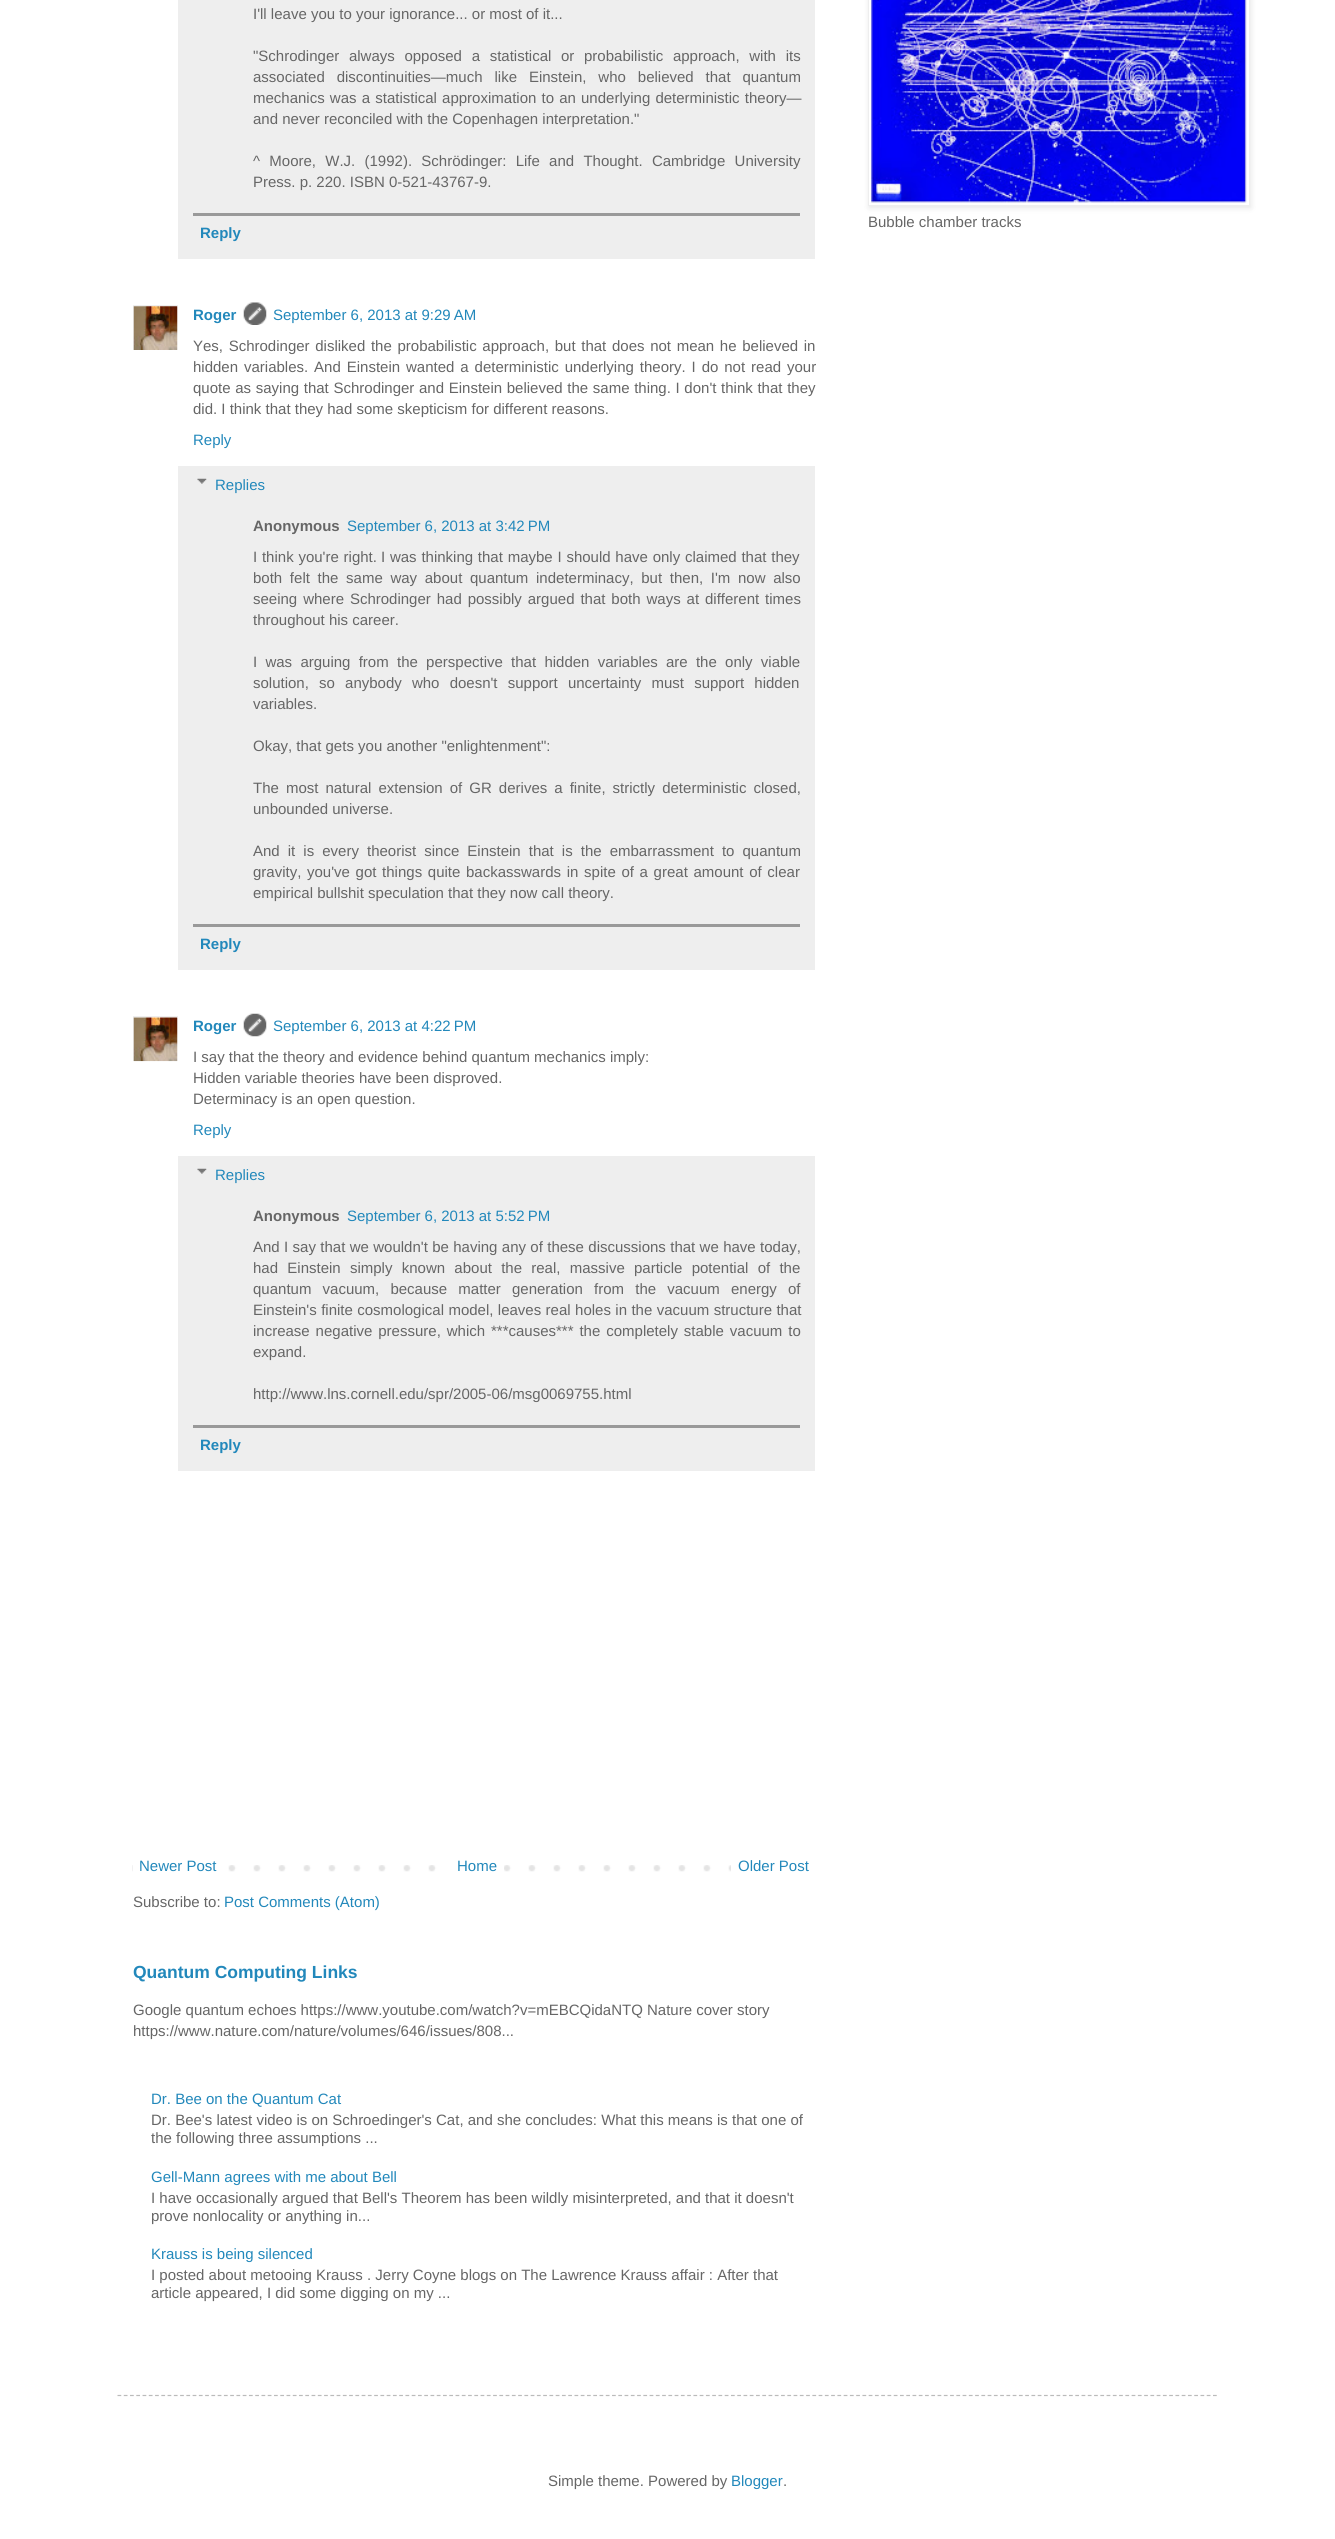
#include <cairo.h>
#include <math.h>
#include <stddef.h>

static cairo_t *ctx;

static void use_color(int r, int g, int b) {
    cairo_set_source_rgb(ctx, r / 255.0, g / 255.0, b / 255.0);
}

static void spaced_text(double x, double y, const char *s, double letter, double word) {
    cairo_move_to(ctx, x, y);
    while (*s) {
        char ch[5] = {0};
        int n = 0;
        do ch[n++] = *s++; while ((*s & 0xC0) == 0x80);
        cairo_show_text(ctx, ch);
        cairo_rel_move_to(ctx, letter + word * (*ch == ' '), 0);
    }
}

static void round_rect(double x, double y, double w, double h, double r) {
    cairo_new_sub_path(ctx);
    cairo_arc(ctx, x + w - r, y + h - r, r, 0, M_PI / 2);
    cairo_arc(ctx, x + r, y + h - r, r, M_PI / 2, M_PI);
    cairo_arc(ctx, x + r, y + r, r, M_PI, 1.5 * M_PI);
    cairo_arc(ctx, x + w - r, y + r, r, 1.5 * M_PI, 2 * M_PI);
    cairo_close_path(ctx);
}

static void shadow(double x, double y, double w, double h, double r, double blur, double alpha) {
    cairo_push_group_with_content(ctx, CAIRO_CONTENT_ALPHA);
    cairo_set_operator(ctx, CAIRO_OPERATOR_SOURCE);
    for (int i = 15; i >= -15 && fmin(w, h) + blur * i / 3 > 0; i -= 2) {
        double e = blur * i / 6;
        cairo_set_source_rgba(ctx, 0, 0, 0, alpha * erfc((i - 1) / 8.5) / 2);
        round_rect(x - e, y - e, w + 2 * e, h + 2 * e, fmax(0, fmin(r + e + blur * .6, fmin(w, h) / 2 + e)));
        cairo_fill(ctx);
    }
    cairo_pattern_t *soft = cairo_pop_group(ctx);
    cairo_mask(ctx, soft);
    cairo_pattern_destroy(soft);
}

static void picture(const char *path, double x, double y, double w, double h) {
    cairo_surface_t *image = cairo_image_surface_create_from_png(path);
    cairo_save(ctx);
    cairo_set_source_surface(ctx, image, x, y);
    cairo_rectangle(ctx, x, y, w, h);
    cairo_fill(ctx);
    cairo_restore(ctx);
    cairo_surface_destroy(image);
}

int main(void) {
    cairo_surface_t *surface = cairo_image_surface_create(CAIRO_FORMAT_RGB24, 1335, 2539);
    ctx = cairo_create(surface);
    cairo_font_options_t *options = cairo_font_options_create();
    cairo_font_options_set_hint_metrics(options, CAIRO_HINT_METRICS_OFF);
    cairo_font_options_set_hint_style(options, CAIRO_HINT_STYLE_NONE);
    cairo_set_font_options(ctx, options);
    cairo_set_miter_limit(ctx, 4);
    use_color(255, 255, 255);
    cairo_paint(ctx);
    use_color(238, 238, 238);
    cairo_rectangle(ctx, 178, 0, 637, 259);
    cairo_fill(ctx);
    cairo_select_font_face(ctx, "Liberation Sans", CAIRO_FONT_SLANT_NORMAL, CAIRO_FONT_WEIGHT_NORMAL);
    cairo_set_font_size(ctx, 15);
    use_color(102, 102, 102);
    cairo_move_to(ctx, 253, 19);
    cairo_show_text(ctx, "I'll leave you to your ignorance... or most of it...");
    spaced_text(253, 61, "\"Schrodinger always opposed a statistical or probabilistic approach, with its", 0, 5.5);
    spaced_text(253, 82, "associated discontinuities—much like Einstein, who believed that quantum", 0, 7.75);
    spaced_text(253, 103, "mechanics was a statistical approximation to an underlying deterministic theory—", 0, 1);
    cairo_move_to(ctx, 253, 124);
    cairo_show_text(ctx, "and never reconciled with the Copenhagen interpretation.\"");
    spaced_text(253, 166, "^ Moore, W.J. (1992). Schrödinger: Life and Thought. Cambridge University", 0, 5.1);
    cairo_move_to(ctx, 253, 187);
    cairo_show_text(ctx, "Press. p. 220. ISBN 0-521-43767-9.");
    use_color(153, 153, 153);
    cairo_rectangle(ctx, 193, 213, 607, 3);
    cairo_fill(ctx);
    cairo_select_font_face(ctx, "Liberation Sans", CAIRO_FONT_SLANT_NORMAL, CAIRO_FONT_WEIGHT_BOLD);
    use_color(34, 136, 187);
    cairo_move_to(ctx, 200, 238);
    cairo_show_text(ctx, "Reply");
    cairo_save(ctx);
    cairo_rectangle(ctx, 133, 305, 45, 45);
    cairo_clip(ctx);
    cairo_rectangle(ctx, 133.5, 305.5, 45, 45);
    use_color(238, 238, 238);
    cairo_set_line_width(ctx, 1);
    cairo_stroke(ctx);
    cairo_restore(ctx);
    picture("img1.png", 133, 306, 45, 44);
    cairo_move_to(ctx, 193, 320);
    cairo_show_text(ctx, "Roger");
    picture("img2.png", 243, 302, 24, 23);
    cairo_select_font_face(ctx, "Liberation Sans", CAIRO_FONT_SLANT_NORMAL, CAIRO_FONT_WEIGHT_NORMAL);
    cairo_move_to(ctx, 273, 320);
    cairo_show_text(ctx, "September 6, 2013 at 9:29 AM");
    use_color(102, 102, 102);
    spaced_text(193, 351, "Yes, Schrodinger disliked the probabilistic approach, but that does not mean he believed in", 0, 1.5);
    spaced_text(193, 372, "hidden variables. And Einstein wanted a deterministic underlying theory. I do not read your", 0, 1.75);
    spaced_text(193, 393, "quote as saying that Schrodinger and Einstein believed the same thing. I don't think that they", 0, 0.5);
    cairo_move_to(ctx, 193, 414);
    cairo_show_text(ctx, "did. I think that they had some skepticism for different reasons.");
    use_color(34, 136, 187);
    cairo_move_to(ctx, 193, 445);
    cairo_show_text(ctx, "Reply");
    use_color(238, 238, 238);
    cairo_rectangle(ctx, 178, 466, 637, 504);
    cairo_fill(ctx);
    picture("img3.png", 197, 478, 10, 6);
    use_color(34, 136, 187);
    cairo_move_to(ctx, 215, 490);
    cairo_show_text(ctx, "Replies");
    cairo_select_font_face(ctx, "Liberation Sans", CAIRO_FONT_SLANT_NORMAL, CAIRO_FONT_WEIGHT_BOLD);
    use_color(102, 102, 102);
    cairo_move_to(ctx, 253, 531);
    cairo_show_text(ctx, "Anonymous");
    cairo_select_font_face(ctx, "Liberation Sans", CAIRO_FONT_SLANT_NORMAL, CAIRO_FONT_WEIGHT_NORMAL);
    use_color(34, 136, 187);
    cairo_move_to(ctx, 347, 531);
    cairo_show_text(ctx, "September 6, 2013 at 3:42 PM");
    use_color(102, 102, 102);
    spaced_text(253, 562, "I think you're right.", 0, 0.6);
    spaced_text(381, 562, "I was thinking that maybe I should have only claimed that they", 0, 0.6);
    spaced_text(253, 583, "both felt the same way about quantum indeterminacy, but then, I'm now also", 0, 3.5);
    spaced_text(253, 604, "seeing where Schrodinger had possibly argued that both ways at different times", 0, 1.75);
    cairo_move_to(ctx, 253, 625);
    cairo_show_text(ctx, "throughout his career.");
    spaced_text(253, 667, "I was arguing from the perspective that hidden variables are the only viable", 0, 4.1);
    spaced_text(253, 688, "solution, so anybody who doesn't support uncertainty must support hidden", 0, 6);
    cairo_move_to(ctx, 253, 709);
    cairo_show_text(ctx, "variables.");
    cairo_move_to(ctx, 253, 751);
    cairo_show_text(ctx, "Okay, that gets you another \"enlightenment\":");
    spaced_text(253, 793, "The most natural extension of GR derives a finite, strictly deterministic closed,", 0, 2.9);
    cairo_move_to(ctx, 253, 814);
    cairo_show_text(ctx, "unbounded universe.");
    spaced_text(253, 856, "And it is every theorist since Einstein that is the embarrassment to quantum", 0, 3.9);
    spaced_text(253, 877, "gravity, you've got things quite backasswards in spite of a great amount of clear", 0, 1.5);
    cairo_move_to(ctx, 253, 898);
    cairo_show_text(ctx, "empirical bullshit speculation that they now call theory.");
    use_color(153, 153, 153);
    cairo_rectangle(ctx, 193, 924, 607, 3);
    cairo_fill(ctx);
    cairo_select_font_face(ctx, "Liberation Sans", CAIRO_FONT_SLANT_NORMAL, CAIRO_FONT_WEIGHT_BOLD);
    use_color(34, 136, 187);
    cairo_move_to(ctx, 200, 949);
    cairo_show_text(ctx, "Reply");
    cairo_save(ctx);
    cairo_rectangle(ctx, 133, 1016, 45, 45);
    cairo_clip(ctx);
    cairo_rectangle(ctx, 133.5, 1016.5, 45, 46);
    use_color(238, 238, 238);
    cairo_set_line_width(ctx, 1);
    cairo_stroke(ctx);
    cairo_restore(ctx);
    picture("img4.png", 133, 1017, 45, 45);
    cairo_move_to(ctx, 193, 1031);
    cairo_show_text(ctx, "Roger");
    picture("img5.png", 243, 1013, 24, 24);
    cairo_select_font_face(ctx, "Liberation Sans", CAIRO_FONT_SLANT_NORMAL, CAIRO_FONT_WEIGHT_NORMAL);
    cairo_move_to(ctx, 273, 1031);
    cairo_show_text(ctx, "September 6, 2013 at 4:22 PM");
    use_color(102, 102, 102);
    cairo_move_to(ctx, 193, 1062);
    cairo_show_text(ctx, "I say that the theory and evidence behind quantum mechanics imply:");
    cairo_move_to(ctx, 193, 1083);
    cairo_show_text(ctx, "Hidden variable theories have been disproved.");
    cairo_move_to(ctx, 193, 1104);
    cairo_show_text(ctx, "Determinacy is an open question.");
    use_color(34, 136, 187);
    cairo_move_to(ctx, 193, 1135);
    cairo_show_text(ctx, "Reply");
    use_color(238, 238, 238);
    cairo_rectangle(ctx, 178, 1156, 637, 315);
    cairo_fill(ctx);
    picture("img3.png", 197, 1168, 10, 6);
    use_color(34, 136, 187);
    cairo_move_to(ctx, 215, 1180);
    cairo_show_text(ctx, "Replies");
    cairo_select_font_face(ctx, "Liberation Sans", CAIRO_FONT_SLANT_NORMAL, CAIRO_FONT_WEIGHT_BOLD);
    use_color(102, 102, 102);
    cairo_move_to(ctx, 253, 1221);
    cairo_show_text(ctx, "Anonymous");
    cairo_select_font_face(ctx, "Liberation Sans", CAIRO_FONT_SLANT_NORMAL, CAIRO_FONT_WEIGHT_NORMAL);
    use_color(34, 136, 187);
    cairo_move_to(ctx, 347, 1221);
    cairo_show_text(ctx, "September 6, 2013 at 5:52 PM");
    use_color(102, 102, 102);
    spaced_text(253, 1252, "And I say that we wouldn't be having any of these discussions that we have today,", 0, 0.2);
    spaced_text(253, 1273, "had Einstein simply known about the real, massive particle potential of the", 0, 5.1);
    spaced_text(253, 1294, "quantum vacuum, because matter generation from the vacuum energy of", 0, 7);
    spaced_text(253, 1315, "Einstein's finite cosmological model, leaves real holes in the vacuum structure that", 0, 0.25);
    spaced_text(253, 1336, "increase negative pressure, which ***causes*** the completely stable vacuum to", 0, 1.75);
    cairo_move_to(ctx, 253, 1357);
    cairo_show_text(ctx, "expand.");
    cairo_move_to(ctx, 253, 1399);
    cairo_show_text(ctx, "http://www.lns.cornell.edu/spr/2005-06/msg0069755.html");
    use_color(153, 153, 153);
    cairo_rectangle(ctx, 193, 1425, 607, 3);
    cairo_fill(ctx);
    cairo_select_font_face(ctx, "Liberation Sans", CAIRO_FONT_SLANT_NORMAL, CAIRO_FONT_WEIGHT_BOLD);
    use_color(34, 136, 187);
    cairo_move_to(ctx, 200, 1450);
    cairo_show_text(ctx, "Reply");
    picture("img6.png", 132, 1865, 599, 7);
    use_color(255, 255, 255);
    cairo_rectangle(ctx, 133, 1865, 78, 7);
    cairo_fill(ctx);
    cairo_select_font_face(ctx, "Liberation Sans", CAIRO_FONT_SLANT_NORMAL, CAIRO_FONT_WEIGHT_NORMAL);
    use_color(34, 136, 187);
    cairo_move_to(ctx, 139, 1871);
    cairo_show_text(ctx, "Newer Post");
    use_color(255, 255, 255);
    cairo_rectangle(ctx, 453, 1865, 51, 7);
    cairo_fill(ctx);
    use_color(34, 136, 187);
    cairo_move_to(ctx, 457, 1871);
    cairo_show_text(ctx, "Home");
    cairo_move_to(ctx, 738, 1871);
    cairo_show_text(ctx, "Older Post");
    use_color(102, 102, 102);
    cairo_move_to(ctx, 133, 1907);
    cairo_show_text(ctx, "Subscribe to:");
    use_color(34, 136, 187);
    cairo_move_to(ctx, 224, 1907);
    cairo_show_text(ctx, "Post Comments (Atom)");
    cairo_select_font_face(ctx, "Liberation Sans", CAIRO_FONT_SLANT_NORMAL, CAIRO_FONT_WEIGHT_BOLD);
    cairo_set_font_size(ctx, 17.5);
    cairo_move_to(ctx, 133, 1978);
    cairo_show_text(ctx, "Quantum Computing Links");
    cairo_select_font_face(ctx, "Liberation Sans", CAIRO_FONT_SLANT_NORMAL, CAIRO_FONT_WEIGHT_NORMAL);
    cairo_set_font_size(ctx, 15);
    use_color(102, 102, 102);
    cairo_move_to(ctx, 133, 2015);
    cairo_show_text(ctx, "Google quantum echoes https://www.youtube.com/watch?v=mEBCQidaNTQ Nature cover story");
    cairo_move_to(ctx, 133, 2036);
    cairo_show_text(ctx, "https://www.nature.com/nature/volumes/646/issues/808...");
    use_color(34, 136, 187);
    cairo_move_to(ctx, 151, 2104);
    cairo_show_text(ctx, "Dr. Bee on the Quantum Cat");
    use_color(102, 102, 102);
    cairo_move_to(ctx, 151, 2125);
    cairo_show_text(ctx, "Dr. Bee's latest video is on Schroedinger's Cat, and she concludes: What this means is that one of");
    cairo_move_to(ctx, 151, 2143);
    cairo_show_text(ctx, "the following three assumptions ...");
    use_color(34, 136, 187);
    cairo_move_to(ctx, 151, 2182);
    cairo_show_text(ctx, "Gell-Mann agrees with me about Bell");
    use_color(102, 102, 102);
    cairo_move_to(ctx, 151, 2203);
    cairo_show_text(ctx, "I have occasionally argued that Bell's Theorem has been wildly misinterpreted, and that it doesn't");
    cairo_move_to(ctx, 151, 2221);
    cairo_show_text(ctx, "prove nonlocality or anything in...");
    use_color(34, 136, 187);
    cairo_move_to(ctx, 151, 2259);
    cairo_show_text(ctx, "Krauss is being silenced");
    use_color(102, 102, 102);
    cairo_move_to(ctx, 151, 2280);
    cairo_show_text(ctx, "I posted about metooing Krauss . Jerry Coyne blogs on The Lawrence Krauss affair : After that");
    cairo_move_to(ctx, 151, 2298);
    cairo_show_text(ctx, "article appeared, I did some digging on my ...");
    cairo_save(ctx);
    cairo_set_fill_rule(ctx, CAIRO_FILL_RULE_EVEN_ODD);
    cairo_new_path(ctx);
    cairo_move_to(ctx, 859, 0);
    cairo_line_to(ctx, 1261, 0);
    cairo_line_to(ctx, 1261, 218);
    cairo_line_to(ctx, 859, 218);
    cairo_close_path(ctx);
    cairo_move_to(ctx, 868, -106);
    cairo_line_to(ctx, 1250, -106);
    cairo_line_to(ctx, 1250, 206);
    cairo_line_to(ctx, 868, 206);
    cairo_close_path(ctx);
    cairo_clip(ctx);
    use_color(0, 0, 0);
    shadow(869, -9, 382, 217, 0, 3, 0.1);
    cairo_restore(ctx);
    cairo_rectangle(ctx, 868.5, -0.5, 381, 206);
    use_color(238, 238, 238);
    cairo_set_line_width(ctx, 1);
    cairo_stroke(ctx);
    picture("img7.png", 871, 0, 376, 203);
    use_color(102, 102, 102);
    cairo_move_to(ctx, 868, 227);
    cairo_show_text(ctx, "Bubble chamber tracks");
    cairo_new_path(ctx);
    cairo_move_to(ctx, 117.5, 2395.5);
    cairo_line_to(ctx, 1217.5, 2395.5);
    use_color(187, 187, 187);
    cairo_set_line_width(ctx, 1.2);
    cairo_set_dash(ctx, (double[]){3.75, 2.51}, 2, 0);
    cairo_stroke(ctx);
    use_color(102, 102, 102);
    cairo_move_to(ctx, 548, 2486);
    cairo_show_text(ctx, "Simple theme. Powered by");
    use_color(34, 136, 187);
    cairo_move_to(ctx, 731, 2486);
    cairo_show_text(ctx, "Blogger");
    use_color(102, 102, 102);
    cairo_move_to(ctx, 783, 2486);
    cairo_show_text(ctx, ".");
    cairo_surface_write_to_png(surface, "result.png");
    cairo_font_options_destroy(options);
    cairo_destroy(ctx);
    cairo_surface_destroy(surface);
    return 0;
}
